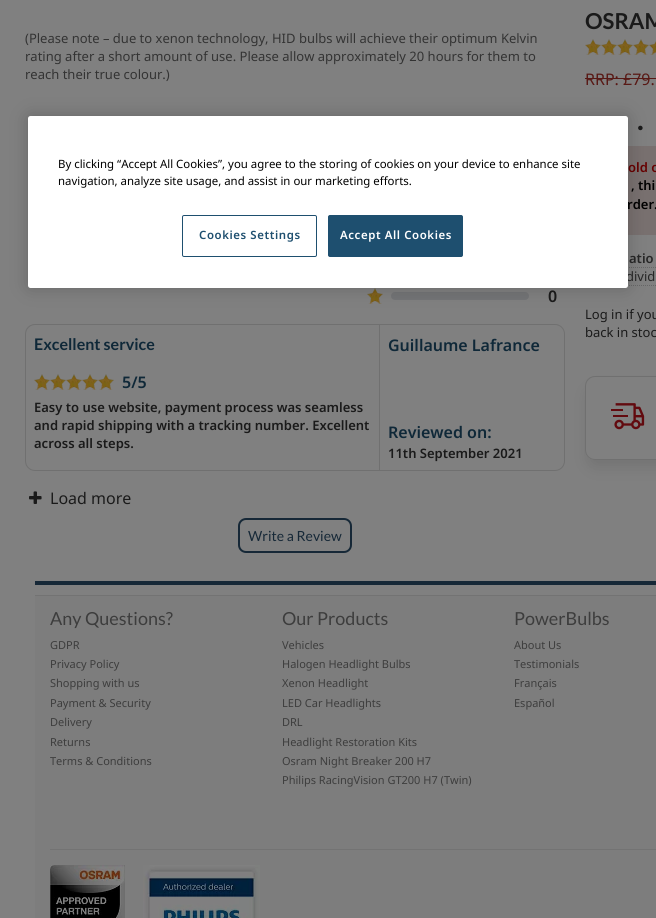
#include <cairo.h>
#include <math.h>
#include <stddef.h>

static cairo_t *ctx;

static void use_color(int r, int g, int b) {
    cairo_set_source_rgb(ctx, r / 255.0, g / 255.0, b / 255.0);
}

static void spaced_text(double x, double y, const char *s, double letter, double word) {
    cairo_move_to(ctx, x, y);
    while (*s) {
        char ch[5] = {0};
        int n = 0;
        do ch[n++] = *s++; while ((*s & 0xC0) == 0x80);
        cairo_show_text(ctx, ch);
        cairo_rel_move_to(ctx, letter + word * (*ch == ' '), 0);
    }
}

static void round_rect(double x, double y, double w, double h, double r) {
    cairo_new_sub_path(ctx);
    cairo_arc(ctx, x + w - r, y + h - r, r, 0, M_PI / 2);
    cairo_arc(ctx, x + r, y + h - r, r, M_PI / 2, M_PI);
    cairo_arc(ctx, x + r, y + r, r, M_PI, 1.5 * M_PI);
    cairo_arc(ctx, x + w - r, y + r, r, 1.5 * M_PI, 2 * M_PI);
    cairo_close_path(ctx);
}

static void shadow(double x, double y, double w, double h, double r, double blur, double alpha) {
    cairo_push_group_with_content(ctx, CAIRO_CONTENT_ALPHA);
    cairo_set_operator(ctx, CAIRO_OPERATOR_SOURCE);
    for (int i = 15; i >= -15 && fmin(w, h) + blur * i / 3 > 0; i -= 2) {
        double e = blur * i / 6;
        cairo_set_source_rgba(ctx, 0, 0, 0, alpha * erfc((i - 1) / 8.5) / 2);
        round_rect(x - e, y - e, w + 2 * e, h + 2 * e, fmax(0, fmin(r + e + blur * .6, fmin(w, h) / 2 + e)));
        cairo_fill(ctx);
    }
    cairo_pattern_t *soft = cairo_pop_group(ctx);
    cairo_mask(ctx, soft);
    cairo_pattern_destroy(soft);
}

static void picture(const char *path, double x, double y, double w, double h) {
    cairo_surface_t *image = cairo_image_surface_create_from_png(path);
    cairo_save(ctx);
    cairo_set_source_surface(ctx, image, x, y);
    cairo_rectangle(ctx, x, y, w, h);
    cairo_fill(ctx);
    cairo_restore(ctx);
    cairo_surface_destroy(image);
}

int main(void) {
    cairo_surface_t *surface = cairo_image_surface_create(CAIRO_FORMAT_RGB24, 656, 918);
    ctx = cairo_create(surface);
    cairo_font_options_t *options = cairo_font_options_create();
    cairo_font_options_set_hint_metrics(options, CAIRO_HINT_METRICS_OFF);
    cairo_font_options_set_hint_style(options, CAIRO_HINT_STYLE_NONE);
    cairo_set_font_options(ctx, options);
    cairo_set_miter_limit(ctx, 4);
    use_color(128, 128, 128);
    cairo_paint(ctx);
    cairo_select_font_face(ctx, "Noto Sans", CAIRO_FONT_SLANT_NORMAL, CAIRO_FONT_WEIGHT_NORMAL);
    cairo_set_font_size(ctx, 13);
    use_color(51, 51, 51);
    cairo_move_to(ctx, 25, 43);
    cairo_show_text(ctx, "(Please note – due to xenon technology, HID bulbs will achieve their optimum Kelvin");
    cairo_move_to(ctx, 25, 61);
    cairo_show_text(ctx, "rating after a short amount of use. Please allow approximately 20 hours for them to");
    cairo_move_to(ctx, 25, 79);
    cairo_show_text(ctx, "reach their true colour.)");
    picture("img1.png", 367, 288, 16, 16);
    use_color(115, 116, 118);
    round_rect(391, 292, 138, 8, 4);
    cairo_fill(ctx);
    cairo_select_font_face(ctx, "Noto Sans SemiBold", CAIRO_FONT_SLANT_NORMAL, CAIRO_FONT_WEIGHT_NORMAL);
    cairo_set_font_size(ctx, 16);
    use_color(26, 26, 26);
    cairo_move_to(ctx, 548, 302);
    cairo_show_text(ctx, "0");
    round_rect(25.5, 324.5, 539, 146, 9.5);
    use_color(112, 112, 112);
    cairo_set_line_width(ctx, 1);
    cairo_stroke(ctx);
    cairo_rectangle(ctx, 379, 325, 1, 145);
    cairo_fill(ctx);
    cairo_select_font_face(ctx, "Lato", CAIRO_FONT_SLANT_NORMAL, CAIRO_FONT_WEIGHT_BOLD);
    use_color(15, 40, 56);
    cairo_move_to(ctx, 34, 350);
    cairo_show_text(ctx, "Excellent service");
    picture("img2.png", 34, 374, 80, 16);
    cairo_select_font_face(ctx, "Noto Sans SemiBold", CAIRO_FONT_SLANT_NORMAL, CAIRO_FONT_WEIGHT_NORMAL);
    cairo_move_to(ctx, 122, 388);
    cairo_show_text(ctx, "5/5");
    cairo_set_font_size(ctx, 13);
    use_color(26, 26, 26);
    cairo_move_to(ctx, 34, 412);
    cairo_show_text(ctx, "Easy to use website, payment process was seamless");
    cairo_move_to(ctx, 34, 430);
    cairo_show_text(ctx, "and rapid shipping with a tracking number. Excellent");
    cairo_move_to(ctx, 34, 448);
    cairo_show_text(ctx, "across all steps.");
    cairo_set_font_size(ctx, 16);
    use_color(15, 40, 56);
    cairo_move_to(ctx, 388, 351);
    cairo_show_text(ctx, "Guillaume Lafrance");
    cairo_move_to(ctx, 388, 438);
    cairo_show_text(ctx, "Reviewed on:");
    cairo_set_font_size(ctx, 13);
    use_color(26, 26, 26);
    cairo_move_to(ctx, 388, 458);
    cairo_show_text(ctx, "11th September 2021");
    picture("img3.png", 29, 491, 13, 13);
    cairo_select_font_face(ctx, "Noto Sans", CAIRO_FONT_SLANT_NORMAL, CAIRO_FONT_WEIGHT_NORMAL);
    cairo_set_font_size(ctx, 16);
    cairo_move_to(ctx, 50, 504);
    cairo_show_text(ctx, "Load more");
    round_rect(239, 519, 112, 33, 7);
    use_color(22, 40, 55);
    cairo_set_line_width(ctx, 2);
    cairo_stroke(ctx);
    cairo_select_font_face(ctx, "Lato", CAIRO_FONT_SLANT_NORMAL, CAIRO_FONT_WEIGHT_NORMAL);
    cairo_set_font_size(ctx, 14);
    cairo_move_to(ctx, 248, 541);
    cairo_show_text(ctx, "Write a Review");
    cairo_select_font_face(ctx, "Lato", CAIRO_FONT_SLANT_NORMAL, CAIRO_FONT_WEIGHT_BOLD);
    cairo_set_font_size(ctx, 22);
    use_color(26, 26, 26);
    cairo_move_to(ctx, 585, 29);
    cairo_show_text(ctx, "OSRAM");
    picture("img4.png", 585, 39, 71, 16);
    cairo_select_font_face(ctx, "Noto Sans", CAIRO_FONT_SLANT_NORMAL, CAIRO_FONT_WEIGHT_NORMAL);
    cairo_set_font_size(ctx, 16);
    use_color(88, 25, 21);
    cairo_move_to(ctx, 585, 85);
    cairo_show_text(ctx, "RRP: £79.");
    cairo_rectangle(ctx, 585, 78, 71, 1);
    cairo_fill(ctx);
    cairo_select_font_face(ctx, "Lato", CAIRO_FONT_SLANT_NORMAL, CAIRO_FONT_WEIGHT_BOLD);
    cairo_set_font_size(ctx, 30);
    use_color(26, 26, 26);
    cairo_move_to(ctx, 637, 130);
    cairo_show_text(ctx, ".");
    use_color(120, 112, 111);
    cairo_rectangle(ctx, 628, 146, 28, 89);
    cairo_fill(ctx);
    cairo_select_font_face(ctx, "Noto Sans SemiBold", CAIRO_FONT_SLANT_NORMAL, CAIRO_FONT_WEIGHT_NORMAL);
    cairo_set_font_size(ctx, 13);
    use_color(102, 0, 0);
    cairo_move_to(ctx, 628, 172);
    cairo_show_text(ctx, "old o");
    use_color(0, 0, 0);
    cairo_move_to(ctx, 631, 190);
    cairo_show_text(ctx, ", thi");
    cairo_move_to(ctx, 627, 209);
    cairo_show_text(ctx, "rder.");
    use_color(38, 38, 38);
    cairo_move_to(ctx, 629, 263);
    cairo_show_text(ctx, "atio");
    cairo_new_path(ctx);
    cairo_move_to(ctx, 585, 267.5);
    cairo_line_to(ctx, 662, 267.5);
    use_color(102, 102, 102);
    cairo_set_line_width(ctx, 1);
    cairo_set_dash(ctx, (double[]){1, 1}, 2, 0);
    cairo_stroke(ctx);
    cairo_select_font_face(ctx, "Noto Sans", CAIRO_FONT_SLANT_NORMAL, CAIRO_FONT_WEIGHT_NORMAL);
    use_color(38, 38, 38);
    cairo_move_to(ctx, 626, 281);
    cairo_show_text(ctx, "divid");
    cairo_new_path(ctx);
    cairo_move_to(ctx, 585, 285.5);
    cairo_line_to(ctx, 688, 285.5);
    use_color(102, 102, 102);
    cairo_stroke(ctx);
    use_color(26, 26, 26);
    cairo_move_to(ctx, 585, 319);
    cairo_show_text(ctx, "Log in if you");
    cairo_move_to(ctx, 585, 337);
    cairo_show_text(ctx, "back in stoc");
    cairo_save(ctx);
    cairo_set_fill_rule(ctx, CAIRO_FILL_RULE_EVEN_ODD);
    cairo_new_path(ctx);
    cairo_move_to(ctx, 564, 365);
    cairo_line_to(ctx, 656, 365);
    cairo_line_to(ctx, 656, 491);
    cairo_line_to(ctx, 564, 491);
    cairo_close_path(ctx);
    cairo_move_to(ctx, 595, 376);
    cairo_line_to(ctx, 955, 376);
    cairo_curve_to(ctx, 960.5, 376, 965, 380.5, 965, 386);
    cairo_line_to(ctx, 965, 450);
    cairo_curve_to(ctx, 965, 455.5, 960.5, 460, 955, 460);
    cairo_line_to(ctx, 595, 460);
    cairo_curve_to(ctx, 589.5, 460, 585, 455.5, 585, 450);
    cairo_line_to(ctx, 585, 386);
    cairo_curve_to(ctx, 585, 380.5, 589.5, 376, 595, 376);
    cairo_close_path(ctx);
    cairo_clip(ctx);
    use_color(0, 0, 0);
    shadow(588, 389, 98, 78, 7, 7.5, 0.1);
    cairo_restore(ctx);
    round_rect(585.5, 376.5, 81, 83, 9.5);
    use_color(112, 112, 112);
    cairo_set_dash(ctx, NULL, 0, 0);
    cairo_stroke(ctx);
    picture("img5.png", 611, 403, 34, 27);
    use_color(22, 40, 55);
    cairo_rectangle(ctx, 35, 581, 621, 4);
    cairo_fill(ctx);
    use_color(125, 125, 125);
    cairo_rectangle(ctx, 35, 596, 621, 322);
    cairo_fill(ctx);
    use_color(115, 115, 115);
    cairo_rectangle(ctx, 35, 595, 621, 1);
    cairo_fill(ctx);
    cairo_select_font_face(ctx, "Lato", CAIRO_FONT_SLANT_NORMAL, CAIRO_FONT_WEIGHT_NORMAL);
    cairo_set_font_size(ctx, 18);
    use_color(61, 61, 61);
    cairo_move_to(ctx, 50, 625);
    cairo_show_text(ctx, "Any Questions?");
    cairo_select_font_face(ctx, "Noto Sans", CAIRO_FONT_SLANT_NORMAL, CAIRO_FONT_WEIGHT_NORMAL);
    cairo_set_font_size(ctx, 11);
    cairo_move_to(ctx, 50, 649);
    cairo_show_text(ctx, "GDPR");
    cairo_move_to(ctx, 50, 668);
    cairo_show_text(ctx, "Privacy Policy");
    cairo_move_to(ctx, 50, 687);
    cairo_show_text(ctx, "Shopping with us");
    cairo_move_to(ctx, 50, 707);
    cairo_show_text(ctx, "Payment & Security");
    cairo_move_to(ctx, 50, 726);
    cairo_show_text(ctx, "Delivery");
    cairo_move_to(ctx, 50, 746);
    cairo_show_text(ctx, "Returns");
    cairo_move_to(ctx, 50, 765);
    cairo_show_text(ctx, "Terms & Conditions");
    cairo_select_font_face(ctx, "Lato", CAIRO_FONT_SLANT_NORMAL, CAIRO_FONT_WEIGHT_NORMAL);
    cairo_set_font_size(ctx, 18);
    cairo_move_to(ctx, 282, 625);
    cairo_show_text(ctx, "Our Products");
    cairo_select_font_face(ctx, "Noto Sans", CAIRO_FONT_SLANT_NORMAL, CAIRO_FONT_WEIGHT_NORMAL);
    cairo_set_font_size(ctx, 11);
    cairo_move_to(ctx, 282, 649);
    cairo_show_text(ctx, "Vehicles");
    cairo_move_to(ctx, 282, 668);
    cairo_show_text(ctx, "Halogen Headlight Bulbs");
    cairo_move_to(ctx, 282, 687);
    cairo_show_text(ctx, "Xenon Headlight");
    cairo_move_to(ctx, 282, 707);
    cairo_show_text(ctx, "LED Car Headlights");
    cairo_move_to(ctx, 282, 726);
    cairo_show_text(ctx, "DRL");
    cairo_move_to(ctx, 282, 746);
    cairo_show_text(ctx, "Headlight Restoration Kits");
    cairo_move_to(ctx, 282, 765);
    cairo_show_text(ctx, "Osram Night Breaker 200 H7");
    cairo_move_to(ctx, 282, 784);
    cairo_show_text(ctx, "Philips RacingVision GT200 H7 (Twin)");
    cairo_select_font_face(ctx, "Lato", CAIRO_FONT_SLANT_NORMAL, CAIRO_FONT_WEIGHT_NORMAL);
    cairo_set_font_size(ctx, 18);
    cairo_move_to(ctx, 514, 625);
    cairo_show_text(ctx, "PowerBulbs");
    cairo_select_font_face(ctx, "Noto Sans", CAIRO_FONT_SLANT_NORMAL, CAIRO_FONT_WEIGHT_NORMAL);
    cairo_set_font_size(ctx, 11);
    cairo_move_to(ctx, 514, 649);
    cairo_show_text(ctx, "About Us");
    cairo_move_to(ctx, 514, 668);
    cairo_show_text(ctx, "Testimonials");
    cairo_move_to(ctx, 514, 687);
    cairo_show_text(ctx, "Français");
    cairo_move_to(ctx, 514, 707);
    cairo_show_text(ctx, "Español");
    use_color(115, 115, 115);
    cairo_rectangle(ctx, 50, 849, 606, 1);
    cairo_fill(ctx);
    picture("img6.png", 50, 865, 75, 53);
    picture("img7.png", 143, 865, 117, 53);
    use_color(0, 0, 0);
    shadow(28, 116, 600, 172, 2.5, 9, 0.2);
    use_color(255, 255, 255);
    round_rect(28, 116, 600, 172, 2.5);
    cairo_fill(ctx);
    cairo_set_font_size(ctx, 11.4);
    use_color(0, 0, 0);
    cairo_move_to(ctx, 58, 168);
    cairo_show_text(ctx, "By clicking “Accept All Cookies”, you agree to the storing of cookies on your device to enhance site");
    cairo_move_to(ctx, 58, 185);
    cairo_show_text(ctx, "navigation, analyze site usage, and assist in our marketing efforts.");
    round_rect(182.5, 215.5, 134, 41, 1.5);
    use_color(30, 79, 111);
    cairo_stroke(ctx);
    cairo_select_font_face(ctx, "Noto Sans SemiBold", CAIRO_FONT_SLANT_NORMAL, CAIRO_FONT_WEIGHT_NORMAL);
    spaced_text(199, 239, "Cookies Settings", 0.6, 0);
    round_rect(328.5, 215.5, 134, 41, 1.5);
    cairo_fill_preserve(ctx);
    cairo_stroke(ctx);
    use_color(255, 255, 255);
    spaced_text(340, 239, "Accept All Cookies", 0.6, 0);
    cairo_surface_write_to_png(surface, "result.png");
    cairo_font_options_destroy(options);
    cairo_destroy(ctx);
    cairo_surface_destroy(surface);
    return 0;
}
